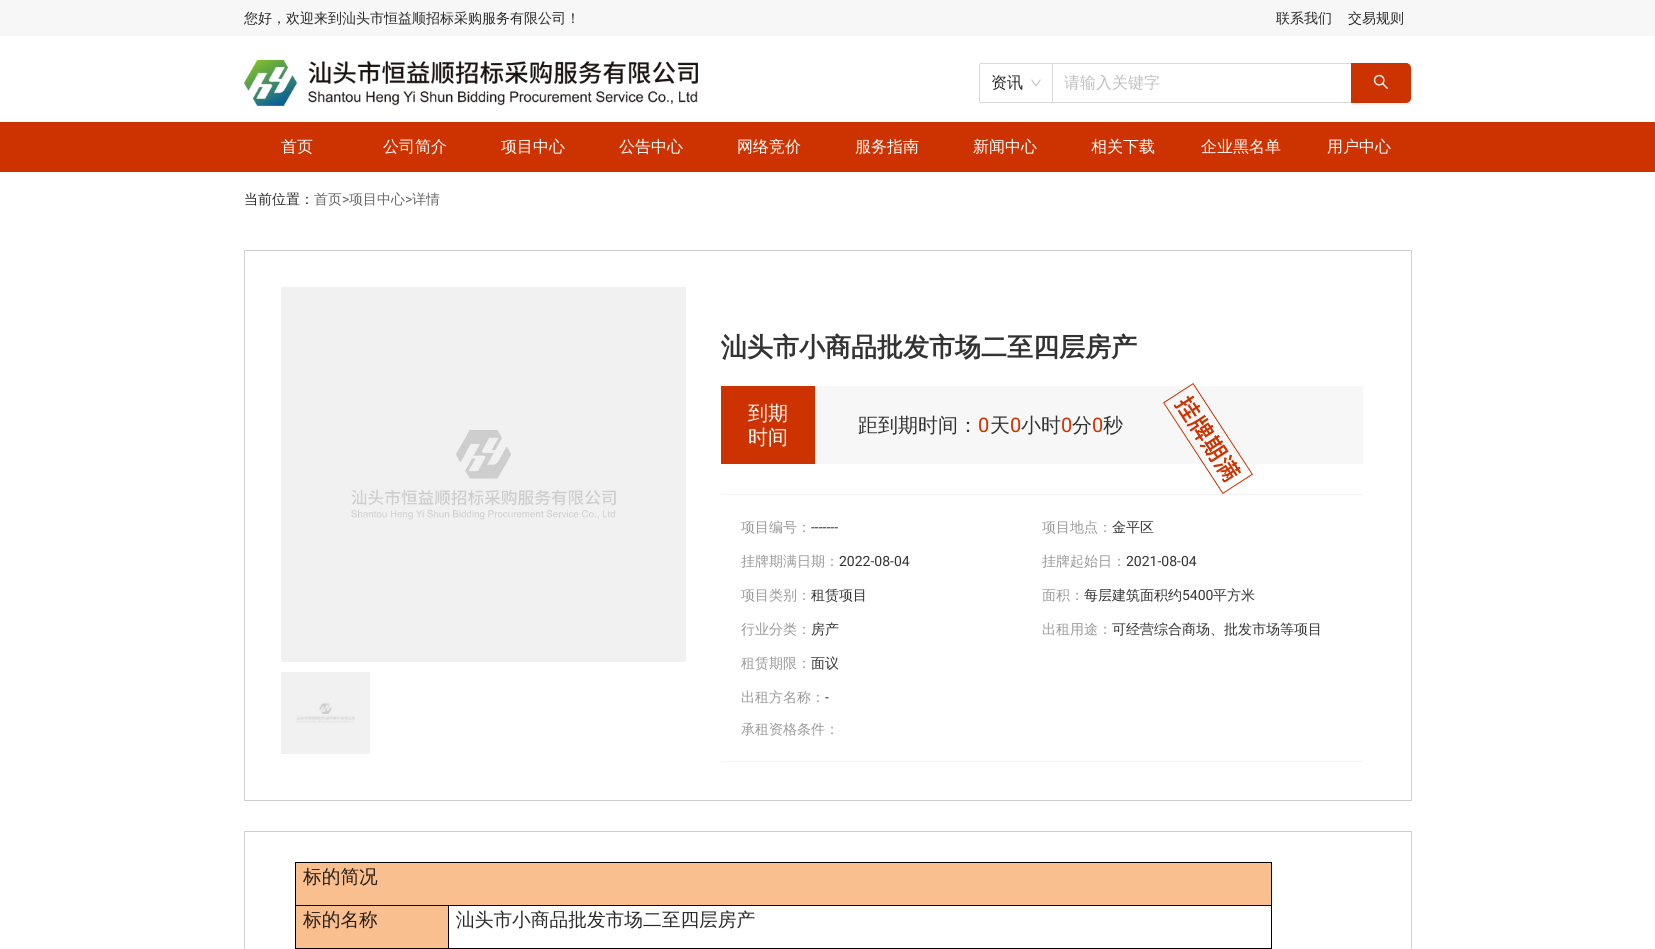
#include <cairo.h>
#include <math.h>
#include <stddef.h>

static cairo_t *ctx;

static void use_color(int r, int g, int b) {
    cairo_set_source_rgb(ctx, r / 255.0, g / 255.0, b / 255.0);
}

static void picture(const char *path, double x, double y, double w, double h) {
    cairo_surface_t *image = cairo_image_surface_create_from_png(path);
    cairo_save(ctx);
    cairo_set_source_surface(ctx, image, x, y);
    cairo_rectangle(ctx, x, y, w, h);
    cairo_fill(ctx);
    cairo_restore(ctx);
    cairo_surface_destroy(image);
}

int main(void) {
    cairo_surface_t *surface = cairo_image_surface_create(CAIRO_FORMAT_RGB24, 1655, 949);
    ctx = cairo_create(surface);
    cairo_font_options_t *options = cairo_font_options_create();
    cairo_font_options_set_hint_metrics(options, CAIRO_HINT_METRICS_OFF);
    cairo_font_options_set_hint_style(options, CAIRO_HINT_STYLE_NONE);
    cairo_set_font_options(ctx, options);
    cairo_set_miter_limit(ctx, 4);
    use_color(255, 255, 255);
    cairo_paint(ctx);
    use_color(247, 247, 247);
    cairo_rectangle(ctx, 0, 0, 1655, 36);
    cairo_fill(ctx);
    cairo_select_font_face(ctx, "WenQuanYi Zen Hei Medium", CAIRO_FONT_SLANT_NORMAL, CAIRO_FONT_WEIGHT_NORMAL);
    cairo_set_font_size(ctx, 14);
    use_color(40, 40, 40);
    cairo_move_to(ctx, 244, 23);
    cairo_show_text(ctx, "您好，欢迎来到汕头市恒益顺招标采购服务有限公司！");
    cairo_move_to(ctx, 1276, 23);
    cairo_show_text(ctx, "联系我们");
    cairo_move_to(ctx, 1348, 23);
    cairo_show_text(ctx, "交易规则");
    picture("img1.png", 244, 60, 454, 46);
    cairo_new_path(ctx);
    cairo_move_to(ctx, 981, 63.5);
    cairo_line_to(ctx, 1052.5, 63.5);
    cairo_line_to(ctx, 1052.5, 102.5);
    cairo_line_to(ctx, 981, 102.5);
    cairo_curve_to(ctx, 980, 102.5, 979.5, 102, 979.5, 101);
    cairo_line_to(ctx, 979.5, 65);
    cairo_curve_to(ctx, 979.5, 64, 980, 63.5, 981, 63.5);
    cairo_close_path(ctx);
    use_color(217, 217, 217);
    cairo_set_line_width(ctx, 1);
    cairo_stroke(ctx);
    cairo_set_font_size(ctx, 16);
    use_color(40, 40, 40);
    cairo_move_to(ctx, 991, 88);
    cairo_show_text(ctx, "资讯");
    picture("img2.png", 1031, 79, 10, 8);
    cairo_rectangle(ctx, 1052.5, 63.5, 299, 39);
    use_color(217, 217, 217);
    cairo_stroke(ctx);
    use_color(191, 191, 191);
    cairo_move_to(ctx, 1064, 88);
    cairo_show_text(ctx, "请输入关键字");
    use_color(244, 244, 244);
    cairo_new_path(ctx);
    cairo_move_to(ctx, 1351, 103);
    cairo_line_to(ctx, 1351, 105);
    cairo_line_to(ctx, 1406, 105);
    cairo_curve_to(ctx, 1409, 105, 1411, 103, 1411, 100);
    cairo_line_to(ctx, 1411, 98);
    cairo_curve_to(ctx, 1411, 101, 1409, 103, 1406, 103);
    cairo_close_path(ctx);
    cairo_fill(ctx);
    use_color(204, 51, 0);
    cairo_new_path(ctx);
    cairo_move_to(ctx, 1351.5, 63.5);
    cairo_line_to(ctx, 1406, 63.5);
    cairo_curve_to(ctx, 1408.5, 63.5, 1410.5, 65.5, 1410.5, 68);
    cairo_line_to(ctx, 1410.5, 98);
    cairo_curve_to(ctx, 1410.5, 100.5, 1408.5, 102.5, 1406, 102.5);
    cairo_line_to(ctx, 1351.5, 102.5);
    cairo_close_path(ctx);
    cairo_fill_preserve(ctx);
    cairo_stroke(ctx);
    picture("img3.png", 1373, 74, 16, 16);
    cairo_rectangle(ctx, 0, 122, 1655, 50);
    cairo_fill(ctx);
    use_color(255, 255, 255);
    cairo_move_to(ctx, 281, 152);
    cairo_show_text(ctx, "首页");
    cairo_move_to(ctx, 383, 152);
    cairo_show_text(ctx, "公司简介");
    cairo_move_to(ctx, 501, 152);
    cairo_show_text(ctx, "项目中心");
    cairo_move_to(ctx, 619, 152);
    cairo_show_text(ctx, "公告中心");
    cairo_move_to(ctx, 737, 152);
    cairo_show_text(ctx, "网络竞价");
    cairo_move_to(ctx, 855, 152);
    cairo_show_text(ctx, "服务指南");
    cairo_move_to(ctx, 973, 152);
    cairo_show_text(ctx, "新闻中心");
    cairo_move_to(ctx, 1091, 152);
    cairo_show_text(ctx, "相关下载");
    cairo_move_to(ctx, 1201, 152);
    cairo_show_text(ctx, "企业黑名单");
    cairo_move_to(ctx, 1327, 152);
    cairo_show_text(ctx, "用户中心");
    cairo_set_font_size(ctx, 14);
    use_color(40, 40, 40);
    cairo_move_to(ctx, 244, 204);
    cairo_show_text(ctx, "当前位置：");
    use_color(102, 102, 102);
    cairo_move_to(ctx, 314, 204);
    cairo_show_text(ctx, "首页");
    cairo_select_font_face(ctx, "Roboto", CAIRO_FONT_SLANT_NORMAL, CAIRO_FONT_WEIGHT_NORMAL);
    cairo_move_to(ctx, 342, 204);
    cairo_show_text(ctx, ">");
    cairo_select_font_face(ctx, "WenQuanYi Zen Hei Medium", CAIRO_FONT_SLANT_NORMAL, CAIRO_FONT_WEIGHT_NORMAL);
    cairo_move_to(ctx, 349, 204);
    cairo_show_text(ctx, "项目中心");
    cairo_select_font_face(ctx, "Roboto", CAIRO_FONT_SLANT_NORMAL, CAIRO_FONT_WEIGHT_NORMAL);
    cairo_move_to(ctx, 405, 204);
    cairo_show_text(ctx, ">");
    cairo_select_font_face(ctx, "WenQuanYi Zen Hei Medium", CAIRO_FONT_SLANT_NORMAL, CAIRO_FONT_WEIGHT_NORMAL);
    cairo_move_to(ctx, 412, 204);
    cairo_show_text(ctx, "详情");
    cairo_rectangle(ctx, 244.5, 250.5, 1167, 550);
    use_color(206, 206, 206);
    cairo_stroke(ctx);
    picture("img4.png", 281, 287, 405, 375);
    picture("img5.png", 281, 672, 89, 82);
    cairo_select_font_face(ctx, "WenQuanYi Zen Hei", CAIRO_FONT_SLANT_NORMAL, CAIRO_FONT_WEIGHT_BOLD);
    cairo_set_font_size(ctx, 26);
    use_color(51, 51, 51);
    cairo_move_to(ctx, 721, 356);
    cairo_show_text(ctx, "汕头市小商品批发市场二至四层房产");
    use_color(204, 51, 0);
    cairo_rectangle(ctx, 721, 386, 94, 78);
    cairo_fill(ctx);
    cairo_select_font_face(ctx, "WenQuanYi Zen Hei Medium", CAIRO_FONT_SLANT_NORMAL, CAIRO_FONT_WEIGHT_NORMAL);
    cairo_set_font_size(ctx, 20);
    use_color(255, 255, 255);
    cairo_move_to(ctx, 748, 420);
    cairo_show_text(ctx, "到期");
    cairo_move_to(ctx, 748, 444);
    cairo_show_text(ctx, "时间");
    use_color(247, 247, 247);
    cairo_rectangle(ctx, 815, 386, 548, 78);
    cairo_fill(ctx);
    use_color(51, 51, 51);
    cairo_move_to(ctx, 858, 432);
    cairo_show_text(ctx, "距到期时间：");
    cairo_select_font_face(ctx, "Roboto", CAIRO_FONT_SLANT_NORMAL, CAIRO_FONT_WEIGHT_NORMAL);
    use_color(204, 51, 0);
    cairo_move_to(ctx, 978, 432);
    cairo_show_text(ctx, "0");
    cairo_select_font_face(ctx, "WenQuanYi Zen Hei Medium", CAIRO_FONT_SLANT_NORMAL, CAIRO_FONT_WEIGHT_NORMAL);
    use_color(51, 51, 51);
    cairo_move_to(ctx, 990, 432);
    cairo_show_text(ctx, "天");
    cairo_select_font_face(ctx, "Roboto", CAIRO_FONT_SLANT_NORMAL, CAIRO_FONT_WEIGHT_NORMAL);
    use_color(204, 51, 0);
    cairo_move_to(ctx, 1010, 432);
    cairo_show_text(ctx, "0");
    cairo_select_font_face(ctx, "WenQuanYi Zen Hei Medium", CAIRO_FONT_SLANT_NORMAL, CAIRO_FONT_WEIGHT_NORMAL);
    use_color(51, 51, 51);
    cairo_move_to(ctx, 1021, 432);
    cairo_show_text(ctx, "小时");
    cairo_select_font_face(ctx, "Roboto", CAIRO_FONT_SLANT_NORMAL, CAIRO_FONT_WEIGHT_NORMAL);
    use_color(204, 51, 0);
    cairo_move_to(ctx, 1061, 432);
    cairo_show_text(ctx, "0");
    cairo_select_font_face(ctx, "WenQuanYi Zen Hei Medium", CAIRO_FONT_SLANT_NORMAL, CAIRO_FONT_WEIGHT_NORMAL);
    use_color(51, 51, 51);
    cairo_move_to(ctx, 1072, 432);
    cairo_show_text(ctx, "分");
    cairo_select_font_face(ctx, "Roboto", CAIRO_FONT_SLANT_NORMAL, CAIRO_FONT_WEIGHT_NORMAL);
    use_color(204, 51, 0);
    cairo_move_to(ctx, 1092, 432);
    cairo_show_text(ctx, "0");
    cairo_select_font_face(ctx, "WenQuanYi Zen Hei Medium", CAIRO_FONT_SLANT_NORMAL, CAIRO_FONT_WEIGHT_NORMAL);
    use_color(51, 51, 51);
    cairo_move_to(ctx, 1103, 432);
    cairo_show_text(ctx, "秒");
    picture("img6.png", 1163, 383, 90, 111);
    use_color(241, 241, 241);
    cairo_rectangle(ctx, 721, 494, 642, 1);
    cairo_fill(ctx);
    cairo_rectangle(ctx, 721, 761, 642, 1);
    cairo_fill(ctx);
    cairo_set_font_size(ctx, 14);
    use_color(153, 153, 153);
    cairo_move_to(ctx, 741, 532);
    cairo_show_text(ctx, "项目编号：");
    cairo_select_font_face(ctx, "Roboto", CAIRO_FONT_SLANT_NORMAL, CAIRO_FONT_WEIGHT_NORMAL);
    use_color(51, 51, 51);
    cairo_move_to(ctx, 811, 532);
    cairo_show_text(ctx, "-------");
    cairo_select_font_face(ctx, "WenQuanYi Zen Hei Medium", CAIRO_FONT_SLANT_NORMAL, CAIRO_FONT_WEIGHT_NORMAL);
    use_color(153, 153, 153);
    cairo_move_to(ctx, 741, 566);
    cairo_show_text(ctx, "挂牌期满日期：");
    cairo_select_font_face(ctx, "Roboto", CAIRO_FONT_SLANT_NORMAL, CAIRO_FONT_WEIGHT_NORMAL);
    use_color(51, 51, 51);
    cairo_move_to(ctx, 839, 566);
    cairo_show_text(ctx, "2022-08-04");
    cairo_select_font_face(ctx, "WenQuanYi Zen Hei Medium", CAIRO_FONT_SLANT_NORMAL, CAIRO_FONT_WEIGHT_NORMAL);
    use_color(153, 153, 153);
    cairo_move_to(ctx, 741, 600);
    cairo_show_text(ctx, "项目类别：");
    use_color(51, 51, 51);
    cairo_move_to(ctx, 811, 600);
    cairo_show_text(ctx, "租赁项目");
    use_color(153, 153, 153);
    cairo_move_to(ctx, 741, 634);
    cairo_show_text(ctx, "行业分类：");
    use_color(51, 51, 51);
    cairo_move_to(ctx, 811, 634);
    cairo_show_text(ctx, "房产");
    use_color(153, 153, 153);
    cairo_move_to(ctx, 741, 668);
    cairo_show_text(ctx, "租赁期限：");
    use_color(51, 51, 51);
    cairo_move_to(ctx, 811, 668);
    cairo_show_text(ctx, "面议");
    use_color(153, 153, 153);
    cairo_move_to(ctx, 741, 702);
    cairo_show_text(ctx, "出租方名称：");
    cairo_select_font_face(ctx, "Roboto", CAIRO_FONT_SLANT_NORMAL, CAIRO_FONT_WEIGHT_NORMAL);
    use_color(51, 51, 51);
    cairo_move_to(ctx, 825, 702);
    cairo_show_text(ctx, "-");
    cairo_select_font_face(ctx, "WenQuanYi Zen Hei Medium", CAIRO_FONT_SLANT_NORMAL, CAIRO_FONT_WEIGHT_NORMAL);
    use_color(153, 153, 153);
    cairo_move_to(ctx, 1042, 532);
    cairo_show_text(ctx, "项目地点：");
    use_color(51, 51, 51);
    cairo_move_to(ctx, 1112, 532);
    cairo_show_text(ctx, "金平区");
    use_color(153, 153, 153);
    cairo_move_to(ctx, 1042, 566);
    cairo_show_text(ctx, "挂牌起始日：");
    cairo_select_font_face(ctx, "Roboto", CAIRO_FONT_SLANT_NORMAL, CAIRO_FONT_WEIGHT_NORMAL);
    use_color(51, 51, 51);
    cairo_move_to(ctx, 1126, 566);
    cairo_show_text(ctx, "2021-08-04");
    cairo_select_font_face(ctx, "WenQuanYi Zen Hei Medium", CAIRO_FONT_SLANT_NORMAL, CAIRO_FONT_WEIGHT_NORMAL);
    use_color(153, 153, 153);
    cairo_move_to(ctx, 1042, 600);
    cairo_show_text(ctx, "面积：");
    use_color(51, 51, 51);
    cairo_move_to(ctx, 1084, 600);
    cairo_show_text(ctx, "每层建筑面积约");
    cairo_select_font_face(ctx, "Roboto", CAIRO_FONT_SLANT_NORMAL, CAIRO_FONT_WEIGHT_NORMAL);
    cairo_move_to(ctx, 1182, 600);
    cairo_show_text(ctx, "5400");
    cairo_select_font_face(ctx, "WenQuanYi Zen Hei Medium", CAIRO_FONT_SLANT_NORMAL, CAIRO_FONT_WEIGHT_NORMAL);
    cairo_move_to(ctx, 1213, 600);
    cairo_show_text(ctx, "平方米");
    use_color(153, 153, 153);
    cairo_move_to(ctx, 1042, 634);
    cairo_show_text(ctx, "出租用途：");
    use_color(51, 51, 51);
    cairo_move_to(ctx, 1112, 634);
    cairo_show_text(ctx, "可经营综合商场、批发市场等项目");
    use_color(153, 153, 153);
    cairo_move_to(ctx, 741, 734);
    cairo_show_text(ctx, "承租资格条件：");
    cairo_rectangle(ctx, 244.5, 831.5, 1167, 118);
    use_color(206, 206, 206);
    cairo_stroke(ctx);
    use_color(250, 191, 143);
    cairo_rectangle(ctx, 296, 863, 975, 42);
    cairo_fill(ctx);
    use_color(0, 0, 0);
    cairo_rectangle(ctx, 295, 862, 977, 1);
    cairo_fill(ctx);
    cairo_rectangle(ctx, 1271, 905, 1, 44);
    cairo_fill(ctx);
    cairo_rectangle(ctx, 1271, 862, 1, 44);
    cairo_fill(ctx);
    cairo_rectangle(ctx, 448, 948, 824, 1);
    cairo_fill(ctx);
    cairo_rectangle(ctx, 448, 905, 1, 44);
    cairo_fill(ctx);
    cairo_rectangle(ctx, 295, 948, 154, 1);
    cairo_fill(ctx);
    cairo_rectangle(ctx, 295, 905, 1, 44);
    cairo_fill(ctx);
    cairo_rectangle(ctx, 295, 905, 977, 1);
    cairo_fill(ctx);
    cairo_rectangle(ctx, 295, 862, 1, 44);
    cairo_fill(ctx);
    cairo_set_font_size(ctx, 18.7);
    use_color(38, 29, 21);
    cairo_move_to(ctx, 303, 883);
    cairo_show_text(ctx, "标的简况");
    use_color(250, 191, 143);
    cairo_rectangle(ctx, 296, 906, 152, 42);
    cairo_fill(ctx);
    use_color(38, 29, 21);
    cairo_move_to(ctx, 303, 926);
    cairo_show_text(ctx, "标的名称");
    use_color(40, 40, 40);
    cairo_move_to(ctx, 456, 926);
    cairo_show_text(ctx, "汕头市小商品批发市场二至四层房产");
    cairo_surface_write_to_png(surface, "result.png");
    cairo_font_options_destroy(options);
    cairo_destroy(ctx);
    cairo_surface_destroy(surface);
    return 0;
}
